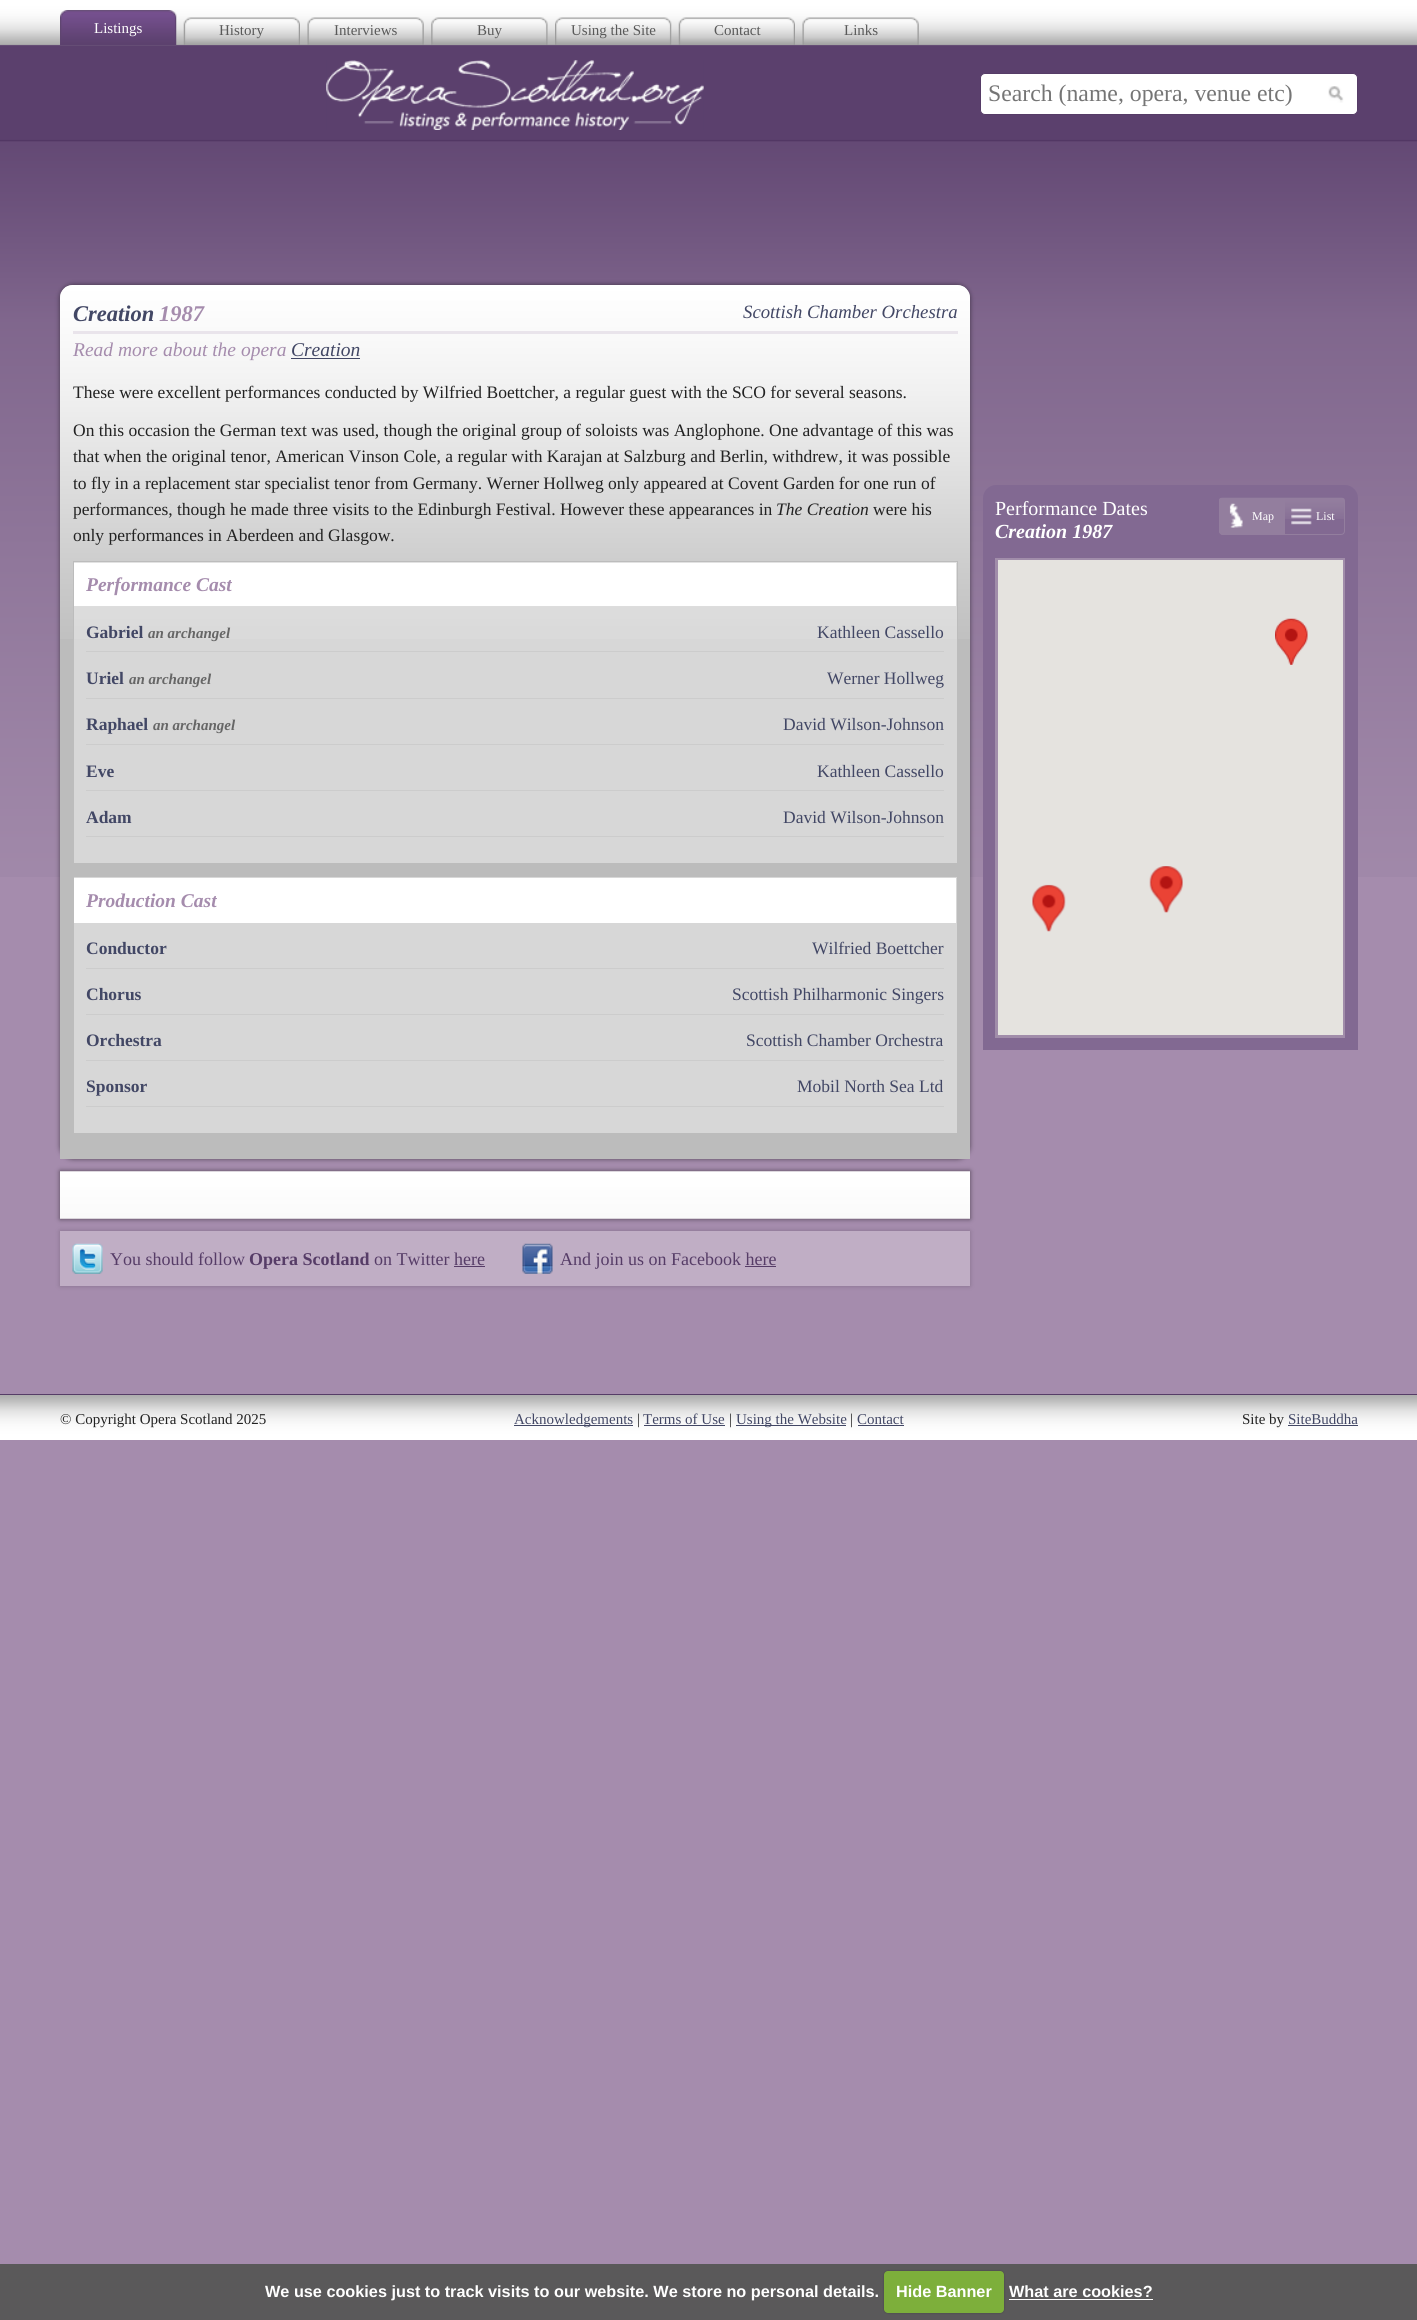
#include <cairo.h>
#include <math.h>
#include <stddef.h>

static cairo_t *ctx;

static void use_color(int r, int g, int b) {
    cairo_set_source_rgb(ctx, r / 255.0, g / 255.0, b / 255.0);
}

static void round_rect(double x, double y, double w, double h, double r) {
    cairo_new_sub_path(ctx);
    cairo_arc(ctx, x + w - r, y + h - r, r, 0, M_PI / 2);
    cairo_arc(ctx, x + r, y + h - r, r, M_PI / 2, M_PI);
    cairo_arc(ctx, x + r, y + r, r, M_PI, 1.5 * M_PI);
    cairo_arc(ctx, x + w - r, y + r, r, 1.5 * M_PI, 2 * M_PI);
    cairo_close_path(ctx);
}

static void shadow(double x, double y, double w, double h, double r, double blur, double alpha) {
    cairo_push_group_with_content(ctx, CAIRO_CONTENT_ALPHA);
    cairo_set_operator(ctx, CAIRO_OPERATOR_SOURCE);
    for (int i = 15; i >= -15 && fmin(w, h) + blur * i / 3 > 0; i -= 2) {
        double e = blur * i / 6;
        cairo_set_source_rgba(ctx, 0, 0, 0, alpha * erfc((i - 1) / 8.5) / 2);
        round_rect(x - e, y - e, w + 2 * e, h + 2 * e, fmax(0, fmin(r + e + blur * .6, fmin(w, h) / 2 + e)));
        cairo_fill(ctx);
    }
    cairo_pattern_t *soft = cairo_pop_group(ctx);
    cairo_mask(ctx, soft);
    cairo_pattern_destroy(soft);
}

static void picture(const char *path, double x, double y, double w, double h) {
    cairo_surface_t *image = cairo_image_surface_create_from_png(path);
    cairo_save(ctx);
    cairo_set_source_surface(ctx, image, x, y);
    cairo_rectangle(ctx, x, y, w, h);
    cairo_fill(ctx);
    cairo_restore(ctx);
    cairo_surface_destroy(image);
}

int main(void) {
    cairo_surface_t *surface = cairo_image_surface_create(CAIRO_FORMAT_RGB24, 1417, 2320);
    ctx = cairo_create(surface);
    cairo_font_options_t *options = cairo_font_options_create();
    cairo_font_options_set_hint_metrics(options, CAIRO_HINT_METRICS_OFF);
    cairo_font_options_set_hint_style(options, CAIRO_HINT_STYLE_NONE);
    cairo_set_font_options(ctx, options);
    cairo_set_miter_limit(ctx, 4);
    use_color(165, 140, 173);
    cairo_paint(ctx);
    picture("img1.png", 0, 0, 1417, 877);
    picture("img2.png", 60, 10, 117, 35);
    cairo_select_font_face(ctx, "Liberation Serif", CAIRO_FONT_SLANT_NORMAL, CAIRO_FONT_WEIGHT_NORMAL);
    cairo_set_font_size(ctx, 15);
    use_color(255, 255, 255);
    cairo_move_to(ctx, 94, 33);
    cairo_show_text(ctx, "Listings");
    picture("img3.png", 183, 17, 117, 28);
    use_color(89, 89, 89);
    cairo_move_to(ctx, 219, 35);
    cairo_show_text(ctx, "History");
    picture("img4.png", 307, 17, 117, 28);
    cairo_move_to(ctx, 334, 35);
    cairo_show_text(ctx, "Interviews");
    picture("img5.png", 431, 17, 117, 28);
    cairo_move_to(ctx, 477, 35);
    cairo_show_text(ctx, "Buy");
    picture("img6.png", 555, 17, 117, 28);
    cairo_move_to(ctx, 571, 35);
    cairo_show_text(ctx, "Using the Site");
    picture("img7.png", 678, 17, 117, 28);
    cairo_move_to(ctx, 714, 35);
    cairo_show_text(ctx, "Contact");
    picture("img8.png", 802, 17, 117, 28);
    cairo_move_to(ctx, 844, 35);
    cairo_show_text(ctx, "Links");
    picture("img9.png", 326, 60, 378, 70);
    use_color(255, 255, 255);
    round_rect(980.5, 73.5, 377, 41, 4.5);
    cairo_fill_preserve(ctx);
    use_color(86, 60, 103);
    cairo_set_line_width(ctx, 1);
    cairo_stroke(ctx);
    cairo_set_font_size(ctx, 23.75);
    use_color(117, 117, 117);
    cairo_move_to(ctx, 988, 101);
    cairo_show_text(ctx, "Search (name, opera, venue etc)");
    picture("img10.png", 1328, 86, 16, 17);
    use_color(0, 0, 0);
    shadow(60, 285, 910, 874, 13, 2.5, 0.5);
    use_color(188, 188, 188);
    cairo_new_path(ctx);
    cairo_move_to(ctx, 73, 285);
    cairo_line_to(ctx, 957, 285);
    cairo_curve_to(ctx, 964, 285, 970, 291, 970, 298);
    cairo_line_to(ctx, 970, 1159);
    cairo_line_to(ctx, 60, 1159);
    cairo_line_to(ctx, 60, 298);
    cairo_curve_to(ctx, 60, 291, 66, 285, 73, 285);
    cairo_close_path(ctx);
    cairo_fill(ctx);
    picture("img11.png", 60, 285, 910, 354);
    use_color(233, 228, 235);
    cairo_rectangle(ctx, 73, 331, 885, 3);
    cairo_fill(ctx);
    cairo_select_font_face(ctx, "Liberation Serif", CAIRO_FONT_SLANT_ITALIC, CAIRO_FONT_WEIGHT_BOLD);
    cairo_set_font_size(ctx, 22.5);
    use_color(66, 71, 101);
    cairo_move_to(ctx, 73, 321);
    cairo_show_text(ctx, "Creation");
    use_color(165, 140, 173);
    cairo_move_to(ctx, 159, 321);
    cairo_show_text(ctx, "1987");
    cairo_select_font_face(ctx, "Liberation Serif", CAIRO_FONT_SLANT_ITALIC, CAIRO_FONT_WEIGHT_NORMAL);
    cairo_set_font_size(ctx, 18.75);
    use_color(66, 71, 101);
    cairo_move_to(ctx, 743, 318);
    cairo_show_text(ctx, "Scottish Chamber Orchestra");
    cairo_set_font_size(ctx, 19.5);
    use_color(165, 140, 173);
    cairo_move_to(ctx, 73, 356);
    cairo_show_text(ctx, "Read more about the opera");
    use_color(66, 71, 101);
    cairo_move_to(ctx, 291, 356);
    cairo_show_text(ctx, "Creation");
    cairo_rectangle(ctx, 291, 358, 69, 1);
    cairo_fill(ctx);
    cairo_select_font_face(ctx, "Liberation Serif", CAIRO_FONT_SLANT_NORMAL, CAIRO_FONT_WEIGHT_NORMAL);
    cairo_set_font_size(ctx, 17.5);
    use_color(34, 34, 34);
    cairo_move_to(ctx, 73, 398);
    cairo_show_text(ctx, "These were excellent performances conducted by Wilfried Boettcher, a regular guest with the SCO for several seasons.");
    cairo_move_to(ctx, 73, 436);
    cairo_show_text(ctx, "On this occasion the German text was used, though the original group of soloists was Anglophone. One advantage of this was");
    cairo_move_to(ctx, 73, 462);
    cairo_show_text(ctx, "that when the original tenor, American Vinson Cole, a regular with Karajan at Salzburg and Berlin, withdrew, it was possible");
    cairo_move_to(ctx, 73, 489);
    cairo_show_text(ctx, "to fly in a replacement star specialist tenor from Germany. Werner Hollweg only appeared at Covent Garden for one run of");
    cairo_move_to(ctx, 73, 515);
    cairo_show_text(ctx, "performances, though he made three visits to the Edinburgh Festival. However these appearances in");
    cairo_select_font_face(ctx, "Liberation Serif", CAIRO_FONT_SLANT_ITALIC, CAIRO_FONT_WEIGHT_NORMAL);
    cairo_move_to(ctx, 776, 515);
    cairo_show_text(ctx, "The Creation");
    cairo_select_font_face(ctx, "Liberation Serif", CAIRO_FONT_SLANT_NORMAL, CAIRO_FONT_WEIGHT_NORMAL);
    cairo_move_to(ctx, 873, 515);
    cairo_show_text(ctx, "were his");
    cairo_move_to(ctx, 73, 541);
    cairo_show_text(ctx, "only performances in Aberdeen and Glasgow.");
    cairo_set_source_rgba(ctx, 1, 1, 1, 0.4);
    cairo_rectangle(ctx, 73.5, 561.5, 884, 302);
    cairo_fill_preserve(ctx);
    use_color(188, 188, 188);
    cairo_stroke(ctx);
    use_color(255, 255, 255);
    cairo_rectangle(ctx, 74, 563, 882, 43);
    cairo_fill(ctx);
    cairo_select_font_face(ctx, "Liberation Serif", CAIRO_FONT_SLANT_ITALIC, CAIRO_FONT_WEIGHT_BOLD);
    cairo_set_font_size(ctx, 19.5);
    use_color(165, 140, 173);
    cairo_move_to(ctx, 86, 591);
    cairo_show_text(ctx, "Performance Cast");
    cairo_select_font_face(ctx, "Liberation Serif", CAIRO_FONT_SLANT_NORMAL, CAIRO_FONT_WEIGHT_BOLD);
    cairo_set_font_size(ctx, 17.5);
    use_color(66, 71, 101);
    cairo_move_to(ctx, 86, 638);
    cairo_show_text(ctx, "Gabriel");
    cairo_select_font_face(ctx, "Liberation Serif", CAIRO_FONT_SLANT_ITALIC, CAIRO_FONT_WEIGHT_BOLD);
    cairo_set_font_size(ctx, 15);
    use_color(102, 102, 102);
    cairo_move_to(ctx, 148, 638);
    cairo_show_text(ctx, "an archangel");
    use_color(204, 204, 204);
    cairo_rectangle(ctx, 86, 651, 858, 1);
    cairo_fill(ctx);
    cairo_select_font_face(ctx, "Liberation Serif", CAIRO_FONT_SLANT_NORMAL, CAIRO_FONT_WEIGHT_NORMAL);
    cairo_set_font_size(ctx, 17.5);
    use_color(66, 71, 101);
    cairo_move_to(ctx, 817, 638);
    cairo_show_text(ctx, "Kathleen Cassello");
    cairo_select_font_face(ctx, "Liberation Serif", CAIRO_FONT_SLANT_NORMAL, CAIRO_FONT_WEIGHT_BOLD);
    cairo_move_to(ctx, 86, 684);
    cairo_show_text(ctx, "Uriel");
    cairo_select_font_face(ctx, "Liberation Serif", CAIRO_FONT_SLANT_ITALIC, CAIRO_FONT_WEIGHT_BOLD);
    cairo_set_font_size(ctx, 15);
    use_color(102, 102, 102);
    cairo_move_to(ctx, 129, 684);
    cairo_show_text(ctx, "an archangel");
    use_color(204, 204, 204);
    cairo_rectangle(ctx, 86, 698, 858, 1);
    cairo_fill(ctx);
    cairo_select_font_face(ctx, "Liberation Serif", CAIRO_FONT_SLANT_NORMAL, CAIRO_FONT_WEIGHT_NORMAL);
    cairo_set_font_size(ctx, 17.5);
    use_color(66, 71, 101);
    cairo_move_to(ctx, 827, 684);
    cairo_show_text(ctx, "Werner Hollweg");
    cairo_select_font_face(ctx, "Liberation Serif", CAIRO_FONT_SLANT_NORMAL, CAIRO_FONT_WEIGHT_BOLD);
    cairo_move_to(ctx, 86, 730);
    cairo_show_text(ctx, "Raphael");
    cairo_select_font_face(ctx, "Liberation Serif", CAIRO_FONT_SLANT_ITALIC, CAIRO_FONT_WEIGHT_BOLD);
    cairo_set_font_size(ctx, 15);
    use_color(102, 102, 102);
    cairo_move_to(ctx, 153, 730);
    cairo_show_text(ctx, "an archangel");
    use_color(204, 204, 204);
    cairo_rectangle(ctx, 86, 744, 858, 1);
    cairo_fill(ctx);
    cairo_select_font_face(ctx, "Liberation Serif", CAIRO_FONT_SLANT_NORMAL, CAIRO_FONT_WEIGHT_NORMAL);
    cairo_set_font_size(ctx, 17.5);
    use_color(66, 71, 101);
    cairo_move_to(ctx, 783, 730);
    cairo_show_text(ctx, "David Wilson-Johnson");
    cairo_select_font_face(ctx, "Liberation Serif", CAIRO_FONT_SLANT_NORMAL, CAIRO_FONT_WEIGHT_BOLD);
    cairo_move_to(ctx, 86, 777);
    cairo_show_text(ctx, "Eve");
    use_color(204, 204, 204);
    cairo_rectangle(ctx, 86, 790, 858, 1);
    cairo_fill(ctx);
    cairo_select_font_face(ctx, "Liberation Serif", CAIRO_FONT_SLANT_NORMAL, CAIRO_FONT_WEIGHT_NORMAL);
    use_color(66, 71, 101);
    cairo_move_to(ctx, 817, 777);
    cairo_show_text(ctx, "Kathleen Cassello");
    cairo_select_font_face(ctx, "Liberation Serif", CAIRO_FONT_SLANT_NORMAL, CAIRO_FONT_WEIGHT_BOLD);
    cairo_move_to(ctx, 86, 823);
    cairo_show_text(ctx, "Adam");
    use_color(204, 204, 204);
    cairo_rectangle(ctx, 86, 836, 858, 1);
    cairo_fill(ctx);
    cairo_select_font_face(ctx, "Liberation Serif", CAIRO_FONT_SLANT_NORMAL, CAIRO_FONT_WEIGHT_NORMAL);
    use_color(66, 71, 101);
    cairo_move_to(ctx, 783, 823);
    cairo_show_text(ctx, "David Wilson-Johnson");
    use_color(215, 215, 215);
    cairo_rectangle(ctx, 74, 877, 883, 256);
    cairo_fill(ctx);
    use_color(255, 255, 255);
    cairo_rectangle(ctx, 74, 878, 882, 45);
    cairo_fill(ctx);
    cairo_select_font_face(ctx, "Liberation Serif", CAIRO_FONT_SLANT_ITALIC, CAIRO_FONT_WEIGHT_BOLD);
    cairo_set_font_size(ctx, 19.5);
    use_color(165, 140, 173);
    cairo_move_to(ctx, 86, 907);
    cairo_show_text(ctx, "Production Cast");
    cairo_select_font_face(ctx, "Liberation Serif", CAIRO_FONT_SLANT_NORMAL, CAIRO_FONT_WEIGHT_BOLD);
    cairo_set_font_size(ctx, 17.5);
    use_color(66, 71, 101);
    cairo_move_to(ctx, 86, 954);
    cairo_show_text(ctx, "Conductor");
    use_color(204, 204, 204);
    cairo_rectangle(ctx, 86, 968, 858, 1);
    cairo_fill(ctx);
    cairo_select_font_face(ctx, "Liberation Serif", CAIRO_FONT_SLANT_NORMAL, CAIRO_FONT_WEIGHT_NORMAL);
    use_color(66, 71, 101);
    cairo_move_to(ctx, 812, 954);
    cairo_show_text(ctx, "Wilfried Boettcher");
    cairo_select_font_face(ctx, "Liberation Serif", CAIRO_FONT_SLANT_NORMAL, CAIRO_FONT_WEIGHT_BOLD);
    cairo_move_to(ctx, 86, 1000);
    cairo_show_text(ctx, "Chorus");
    use_color(204, 204, 204);
    cairo_rectangle(ctx, 86, 1014, 858, 1);
    cairo_fill(ctx);
    cairo_select_font_face(ctx, "Liberation Serif", CAIRO_FONT_SLANT_NORMAL, CAIRO_FONT_WEIGHT_NORMAL);
    use_color(66, 71, 101);
    cairo_move_to(ctx, 732, 1000);
    cairo_show_text(ctx, "Scottish Philharmonic Singers");
    cairo_select_font_face(ctx, "Liberation Serif", CAIRO_FONT_SLANT_NORMAL, CAIRO_FONT_WEIGHT_BOLD);
    cairo_move_to(ctx, 86, 1046);
    cairo_show_text(ctx, "Orchestra");
    use_color(204, 204, 204);
    cairo_rectangle(ctx, 86, 1060, 858, 1);
    cairo_fill(ctx);
    cairo_select_font_face(ctx, "Liberation Serif", CAIRO_FONT_SLANT_NORMAL, CAIRO_FONT_WEIGHT_NORMAL);
    use_color(66, 71, 101);
    cairo_move_to(ctx, 746, 1046);
    cairo_show_text(ctx, "Scottish Chamber Orchestra");
    cairo_select_font_face(ctx, "Liberation Serif", CAIRO_FONT_SLANT_NORMAL, CAIRO_FONT_WEIGHT_BOLD);
    cairo_move_to(ctx, 86, 1092);
    cairo_show_text(ctx, "Sponsor");
    use_color(204, 204, 204);
    cairo_rectangle(ctx, 86, 1106, 858, 1);
    cairo_fill(ctx);
    cairo_select_font_face(ctx, "Liberation Serif", CAIRO_FONT_SLANT_NORMAL, CAIRO_FONT_WEIGHT_NORMAL);
    use_color(66, 71, 101);
    cairo_move_to(ctx, 797, 1092);
    cairo_show_text(ctx, "Mobil North Sea Ltd");
    use_color(0, 0, 0);
    shadow(60, 1171, 910, 48, 0, 2.5, 0.5);
    picture("img12.png", 60, 1171, 910, 48);
    cairo_save(ctx);
    cairo_set_fill_rule(ctx, CAIRO_FILL_RULE_EVEN_ODD);
    cairo_new_path(ctx);
    cairo_move_to(ctx, 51, 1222);
    cairo_line_to(ctx, 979, 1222);
    cairo_line_to(ctx, 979, 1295);
    cairo_line_to(ctx, 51, 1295);
    cairo_close_path(ctx);
    cairo_move_to(ctx, 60, 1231);
    cairo_line_to(ctx, 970, 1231);
    cairo_line_to(ctx, 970, 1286);
    cairo_line_to(ctx, 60, 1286);
    cairo_close_path(ctx);
    cairo_clip(ctx);
    shadow(60, 1231, 910, 55, 0, 2.5, 0.2);
    cairo_restore(ctx);
    cairo_set_source_rgba(ctx, 0.996, 0.996, 0.996, 0.3);
    cairo_rectangle(ctx, 60, 1231, 910, 55);
    cairo_fill(ctx);
    picture("img13.png", 72, 1243, 31, 31);
    cairo_set_font_size(ctx, 18);
    use_color(86, 60, 103);
    cairo_move_to(ctx, 110, 1265);
    cairo_show_text(ctx, "You should follow");
    cairo_select_font_face(ctx, "Liberation Serif", CAIRO_FONT_SLANT_NORMAL, CAIRO_FONT_WEIGHT_BOLD);
    cairo_move_to(ctx, 249, 1265);
    cairo_show_text(ctx, "Opera Scotland");
    cairo_select_font_face(ctx, "Liberation Serif", CAIRO_FONT_SLANT_NORMAL, CAIRO_FONT_WEIGHT_NORMAL);
    cairo_move_to(ctx, 374, 1265);
    cairo_show_text(ctx, "on Twitter here");
    cairo_rectangle(ctx, 454, 1266, 31, 1);
    cairo_fill(ctx);
    picture("img14.png", 522, 1243, 31, 31);
    cairo_move_to(ctx, 560, 1265);
    cairo_show_text(ctx, "And join us on Facebook here");
    cairo_rectangle(ctx, 745, 1266, 31, 1);
    cairo_fill(ctx);
    use_color(130, 105, 146);
    cairo_new_path(ctx);
    cairo_move_to(ctx, 996, 485);
    cairo_line_to(ctx, 1345, 485);
    cairo_curve_to(ctx, 1352, 485, 1358, 491, 1358, 498);
    cairo_line_to(ctx, 1358, 1050);
    cairo_line_to(ctx, 983, 1050);
    cairo_line_to(ctx, 983, 498);
    cairo_curve_to(ctx, 983, 491, 989, 485, 996, 485);
    cairo_close_path(ctx);
    cairo_fill(ctx);
    cairo_set_font_size(ctx, 20);
    use_color(255, 255, 255);
    cairo_move_to(ctx, 995, 515);
    cairo_show_text(ctx, "Performance Dates");
    cairo_select_font_face(ctx, "Liberation Serif", CAIRO_FONT_SLANT_ITALIC, CAIRO_FONT_WEIGHT_BOLD);
    cairo_move_to(ctx, 995, 538);
    cairo_show_text(ctx, "Creation 1987");
    picture("img15.png", 1219, 497, 126, 22);
    use_color(147, 126, 158);
    cairo_new_path(ctx);
    cairo_move_to(ctx, 1223, 498);
    cairo_line_to(ctx, 1284, 498);
    cairo_line_to(ctx, 1284, 535);
    cairo_line_to(ctx, 1223, 535);
    cairo_curve_to(ctx, 1221, 535, 1219, 533, 1219, 531);
    cairo_line_to(ctx, 1219, 502);
    cairo_curve_to(ctx, 1219, 500, 1221, 498, 1223, 498);
    cairo_close_path(ctx);
    cairo_fill(ctx);
    picture("img16.png", 1229, 503, 14, 25);
    cairo_new_path(ctx);
    cairo_move_to(ctx, 1223, 498.5);
    cairo_line_to(ctx, 1283.5, 498.5);
    cairo_line_to(ctx, 1283.5, 534.5);
    cairo_line_to(ctx, 1223, 534.5);
    cairo_curve_to(ctx, 1221, 534.5, 1219.5, 533, 1219.5, 531);
    cairo_line_to(ctx, 1219.5, 502);
    cairo_curve_to(ctx, 1219.5, 500, 1221, 498.5, 1223, 498.5);
    cairo_close_path(ctx);
    cairo_stroke(ctx);
    cairo_select_font_face(ctx, "Liberation Serif", CAIRO_FONT_SLANT_NORMAL, CAIRO_FONT_WEIGHT_NORMAL);
    cairo_set_font_size(ctx, 12);
    use_color(255, 255, 255);
    cairo_move_to(ctx, 1252, 520);
    cairo_show_text(ctx, "Map");
    picture("img17.png", 1291, 508, 21, 17);
    cairo_new_path(ctx);
    cairo_move_to(ctx, 1284.5, 498.5);
    cairo_line_to(ctx, 1341, 498.5);
    cairo_curve_to(ctx, 1343, 498.5, 1344.5, 500, 1344.5, 502);
    cairo_line_to(ctx, 1344.5, 531);
    cairo_curve_to(ctx, 1344.5, 533, 1343, 534.5, 1341, 534.5);
    cairo_line_to(ctx, 1284.5, 534.5);
    cairo_close_path(ctx);
    use_color(147, 126, 158);
    cairo_stroke(ctx);
    use_color(255, 255, 255);
    cairo_move_to(ctx, 1316, 520);
    cairo_show_text(ctx, "List");
    cairo_rectangle(ctx, 996.5, 559.5, 347, 477);
    use_color(161, 141, 170);
    cairo_set_line_width(ctx, 3);
    cairo_stroke(ctx);
    use_color(229, 227, 223);
    cairo_rectangle(ctx, 998, 560, 345, 475);
    cairo_fill(ctx);
    picture("img18.png", 1275, 618, 33, 47);
    picture("img19.png", 1032, 884, 34, 48);
    picture("img20.png", 1149, 866, 34, 47);
    picture("img21.png", 0, 1395, 1417, 45);
    use_color(86, 60, 103);
    cairo_rectangle(ctx, 0, 1394, 1417, 1);
    cairo_fill(ctx);
    cairo_set_font_size(ctx, 15);
    use_color(34, 34, 34);
    cairo_move_to(ctx, 60, 1424);
    cairo_show_text(ctx, "© Copyright Opera Scotland 2025");
    use_color(66, 71, 101);
    cairo_rectangle(ctx, 514, 1425, 119, 1);
    cairo_fill(ctx);
    cairo_move_to(ctx, 514, 1424);
    cairo_show_text(ctx, "Acknowledgements");
    use_color(34, 34, 34);
    cairo_move_to(ctx, 637, 1424);
    cairo_show_text(ctx, "|");
    use_color(66, 71, 101);
    cairo_move_to(ctx, 643, 1424);
    cairo_show_text(ctx, "Terms of Use");
    cairo_rectangle(ctx, 644, 1425, 81, 1);
    cairo_fill(ctx);
    use_color(34, 34, 34);
    cairo_move_to(ctx, 729, 1424);
    cairo_show_text(ctx, "|");
    use_color(66, 71, 101);
    cairo_rectangle(ctx, 736, 1425, 110, 1);
    cairo_fill(ctx);
    cairo_move_to(ctx, 736, 1424);
    cairo_show_text(ctx, "Using the Website");
    use_color(34, 34, 34);
    cairo_move_to(ctx, 850, 1424);
    cairo_show_text(ctx, "|");
    use_color(66, 71, 101);
    cairo_move_to(ctx, 857, 1424);
    cairo_show_text(ctx, "Contact");
    cairo_rectangle(ctx, 858, 1425, 46, 1);
    cairo_fill(ctx);
    use_color(34, 34, 34);
    cairo_move_to(ctx, 1242, 1424);
    cairo_show_text(ctx, "Site by");
    use_color(66, 71, 101);
    cairo_move_to(ctx, 1288, 1424);
    cairo_show_text(ctx, "SiteBuddha");
    cairo_rectangle(ctx, 1288, 1425, 70, 1);
    cairo_fill(ctx);
    use_color(90, 89, 90);
    cairo_rectangle(ctx, 0, 2264, 1417, 56);
    cairo_fill(ctx);
    cairo_select_font_face(ctx, "Liberation Sans", CAIRO_FONT_SLANT_NORMAL, CAIRO_FONT_WEIGHT_BOLD);
    cairo_set_font_size(ctx, 16.25);
    use_color(255, 255, 255);
    cairo_move_to(ctx, 265, 2297);
    cairo_show_text(ctx, "We use cookies just to track visits to our website. We store no personal details.");
    use_color(0, 0, 0);
    shadow(884, 2271, 120, 42, 4, 1, 0.25);
    use_color(125, 175, 59);
    round_rect(884, 2271, 120, 42, 4);
    cairo_fill(ctx);
    use_color(255, 255, 255);
    cairo_move_to(ctx, 896, 2297);
    cairo_show_text(ctx, "Hide Banner");
    cairo_move_to(ctx, 1009, 2297);
    cairo_show_text(ctx, "What are cookies?");
    cairo_rectangle(ctx, 1009, 2299, 144, 1);
    cairo_fill(ctx);
    cairo_surface_write_to_png(surface, "result.png");
    cairo_font_options_destroy(options);
    cairo_destroy(ctx);
    cairo_surface_destroy(surface);
    return 0;
}
